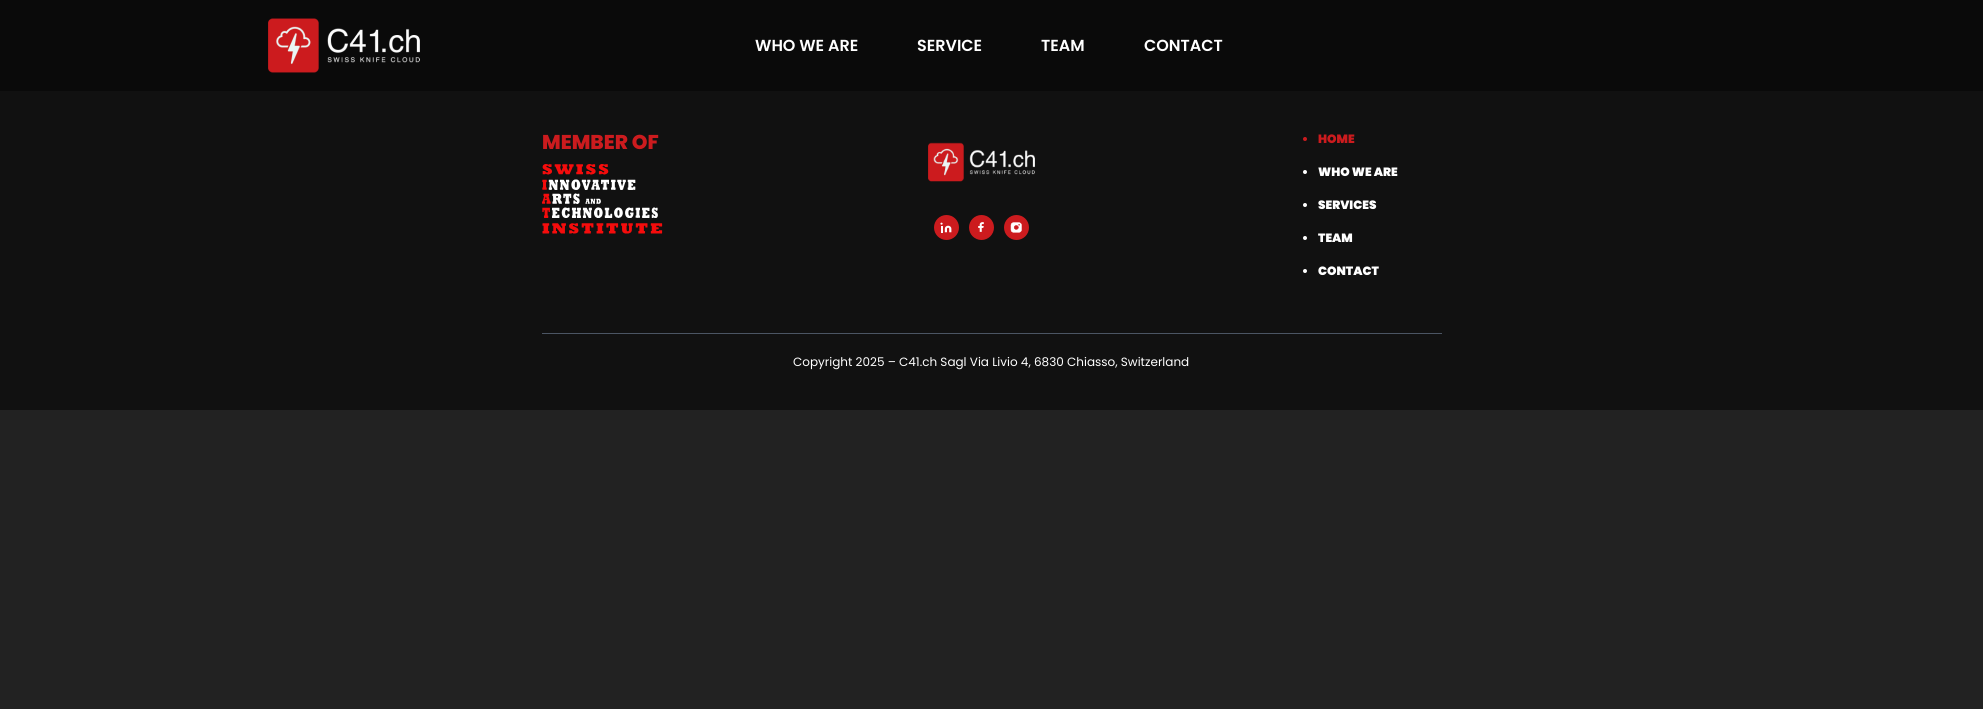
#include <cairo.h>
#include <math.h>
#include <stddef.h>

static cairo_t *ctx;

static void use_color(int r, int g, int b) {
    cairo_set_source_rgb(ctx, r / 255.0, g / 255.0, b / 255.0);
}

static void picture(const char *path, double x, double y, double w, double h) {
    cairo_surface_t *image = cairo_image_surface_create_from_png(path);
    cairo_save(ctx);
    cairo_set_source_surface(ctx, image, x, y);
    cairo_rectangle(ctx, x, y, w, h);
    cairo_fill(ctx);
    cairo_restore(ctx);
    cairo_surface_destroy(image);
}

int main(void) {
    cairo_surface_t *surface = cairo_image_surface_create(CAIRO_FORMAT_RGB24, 1983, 709);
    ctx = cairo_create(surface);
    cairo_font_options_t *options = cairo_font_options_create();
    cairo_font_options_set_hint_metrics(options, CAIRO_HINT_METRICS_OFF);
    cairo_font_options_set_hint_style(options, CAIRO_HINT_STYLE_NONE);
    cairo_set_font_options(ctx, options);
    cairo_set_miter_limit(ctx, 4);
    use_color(34, 34, 34);
    cairo_paint(ctx);
    use_color(10, 10, 10);
    cairo_rectangle(ctx, 0, 0, 1983, 91);
    cairo_fill(ctx);
    picture("img1.png", 268, 18, 152, 55);
    cairo_select_font_face(ctx, "Poppins SemiBold", CAIRO_FONT_SLANT_NORMAL, CAIRO_FONT_WEIGHT_NORMAL);
    cairo_set_font_size(ctx, 16);
    use_color(255, 255, 255);
    cairo_move_to(ctx, 755, 51);
    cairo_show_text(ctx, "WHO WE ARE");
    cairo_move_to(ctx, 917, 51);
    cairo_show_text(ctx, "SERVICE");
    cairo_move_to(ctx, 1041, 51);
    cairo_show_text(ctx, "TEAM");
    cairo_move_to(ctx, 1144, 51);
    cairo_show_text(ctx, "CONTACT");
    use_color(17, 17, 17);
    cairo_rectangle(ctx, 0, 91, 1983, 319);
    cairo_fill(ctx);
    cairo_select_font_face(ctx, "Poppins ExtraBold", CAIRO_FONT_SLANT_NORMAL, CAIRO_FONT_WEIGHT_NORMAL);
    cairo_set_font_size(ctx, 20);
    use_color(204, 27, 30);
    cairo_move_to(ctx, 542, 149);
    cairo_show_text(ctx, "MEMBER OF");
    picture("img2.png", 542, 164, 121, 70);
    picture("img3.png", 928, 142, 107, 40);
    picture("img4.png", 934, 215, 25, 25);
    picture("img5.png", 969, 215, 25, 25);
    picture("img6.png", 1004, 215, 25, 25);
    cairo_arc(ctx, 1305, 139, 2, 0, 2 * M_PI);
    cairo_fill(ctx);
    cairo_select_font_face(ctx, "Poppins Black", CAIRO_FONT_SLANT_NORMAL, CAIRO_FONT_WEIGHT_NORMAL);
    cairo_set_font_size(ctx, 12);
    cairo_move_to(ctx, 1318, 143);
    cairo_show_text(ctx, "HOME");
    use_color(255, 255, 255);
    cairo_new_path(ctx);
    cairo_arc(ctx, 1305, 172, 2, 0, 2 * M_PI);
    cairo_fill(ctx);
    cairo_move_to(ctx, 1318, 176);
    cairo_show_text(ctx, "WHO WE ARE");
    cairo_new_path(ctx);
    cairo_arc(ctx, 1305, 205, 2, 0, 2 * M_PI);
    cairo_fill(ctx);
    cairo_move_to(ctx, 1318, 209);
    cairo_show_text(ctx, "SERVICES");
    cairo_new_path(ctx);
    cairo_arc(ctx, 1305, 238, 2, 0, 2 * M_PI);
    cairo_fill(ctx);
    cairo_move_to(ctx, 1318, 242);
    cairo_show_text(ctx, "TEAM");
    cairo_new_path(ctx);
    cairo_arc(ctx, 1305, 271, 2, 0, 2 * M_PI);
    cairo_fill(ctx);
    cairo_move_to(ctx, 1318, 275);
    cairo_show_text(ctx, "CONTACT");
    use_color(75, 85, 99);
    cairo_rectangle(ctx, 542, 333, 900, 1);
    cairo_fill(ctx);
    cairo_select_font_face(ctx, "Poppins", CAIRO_FONT_SLANT_NORMAL, CAIRO_FONT_WEIGHT_NORMAL);
    use_color(255, 255, 255);
    cairo_move_to(ctx, 793, 366);
    cairo_show_text(ctx, "Copyright 2025 – C41.ch Sagl Via Livio 4, 6830 Chiasso, Switzerland");
    cairo_surface_write_to_png(surface, "result.png");
    cairo_font_options_destroy(options);
    cairo_destroy(ctx);
    cairo_surface_destroy(surface);
    return 0;
}
